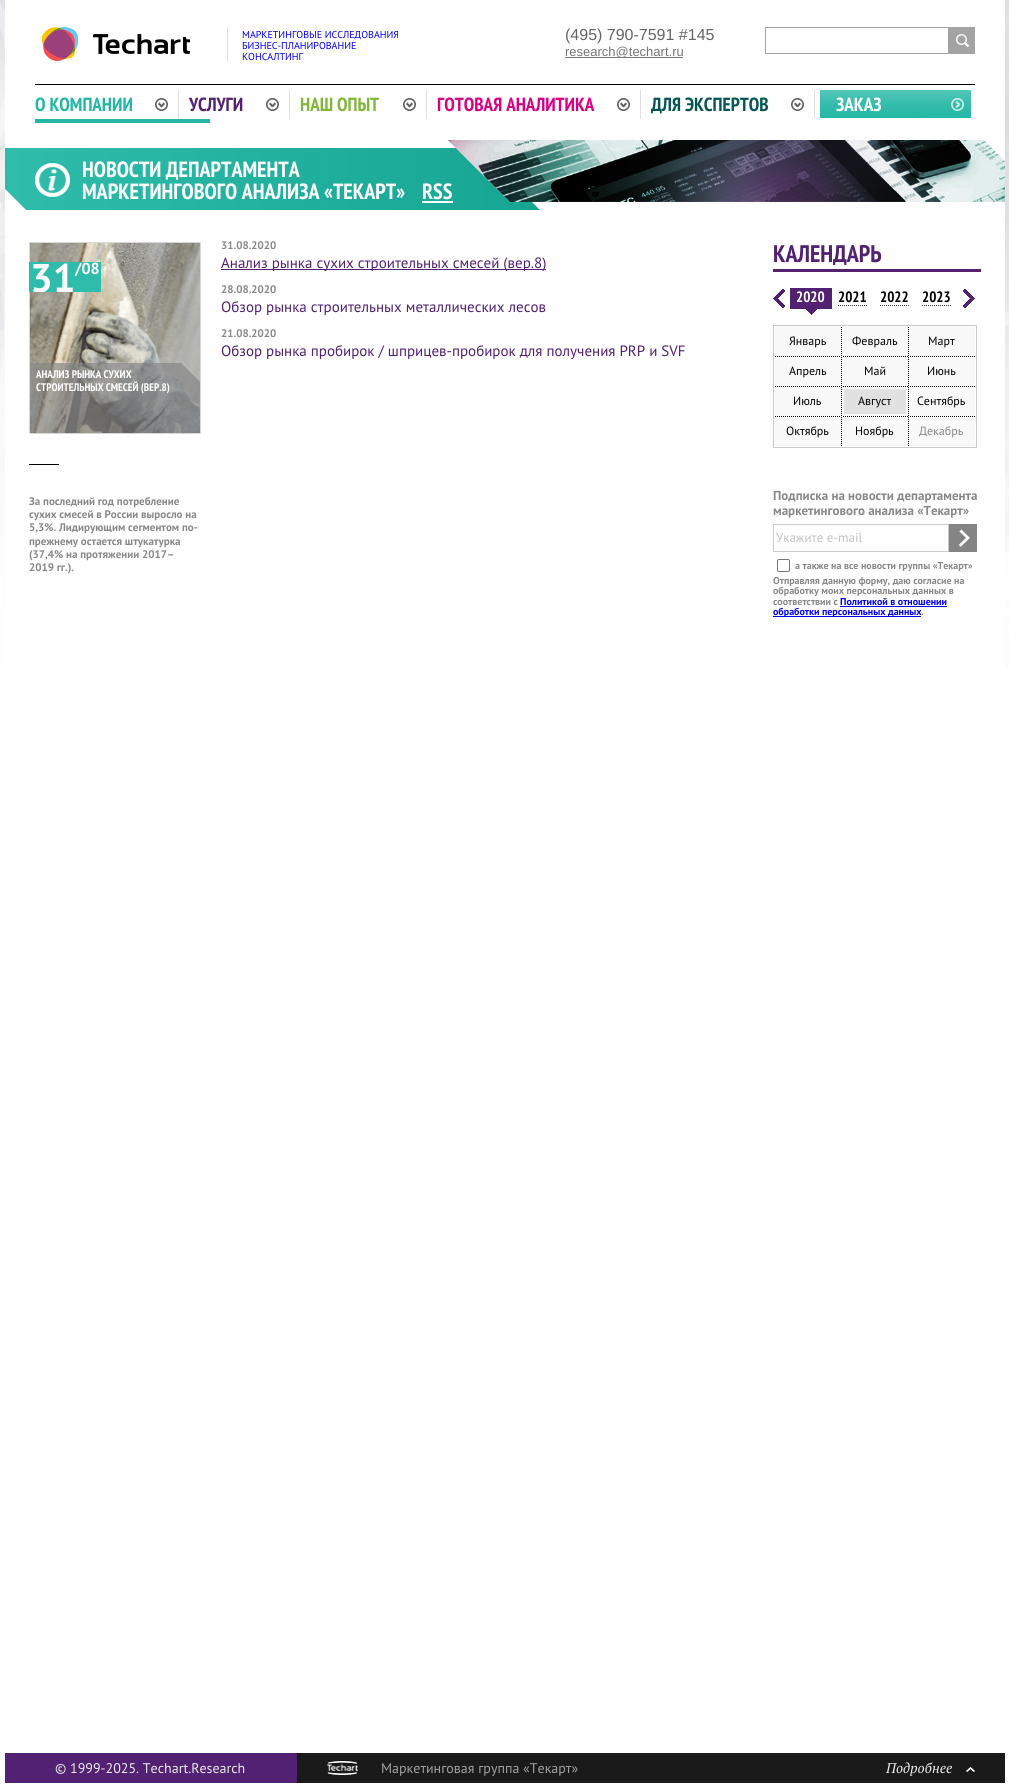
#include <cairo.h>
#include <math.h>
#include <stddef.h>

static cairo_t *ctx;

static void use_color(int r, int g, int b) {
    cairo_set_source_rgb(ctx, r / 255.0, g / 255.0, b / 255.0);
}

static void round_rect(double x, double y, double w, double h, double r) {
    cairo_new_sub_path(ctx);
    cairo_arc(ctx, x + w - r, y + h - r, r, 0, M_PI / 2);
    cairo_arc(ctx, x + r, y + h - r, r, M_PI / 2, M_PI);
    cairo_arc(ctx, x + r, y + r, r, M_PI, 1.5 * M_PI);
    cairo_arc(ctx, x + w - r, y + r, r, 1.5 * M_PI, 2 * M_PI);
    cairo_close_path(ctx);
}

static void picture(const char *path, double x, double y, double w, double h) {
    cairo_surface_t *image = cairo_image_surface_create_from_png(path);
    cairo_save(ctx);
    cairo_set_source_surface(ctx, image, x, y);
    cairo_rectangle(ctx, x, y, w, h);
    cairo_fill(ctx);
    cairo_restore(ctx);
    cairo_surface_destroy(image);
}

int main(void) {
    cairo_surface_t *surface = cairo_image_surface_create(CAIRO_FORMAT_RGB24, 1009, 1784);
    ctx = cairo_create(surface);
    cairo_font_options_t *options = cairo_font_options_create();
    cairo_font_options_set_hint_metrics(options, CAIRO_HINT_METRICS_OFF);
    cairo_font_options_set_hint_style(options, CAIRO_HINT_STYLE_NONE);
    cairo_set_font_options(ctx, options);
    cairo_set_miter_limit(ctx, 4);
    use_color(255, 255, 255);
    cairo_paint(ctx);
    picture("img1.png", 0, 0, 1009, 668);
    use_color(255, 255, 255);
    cairo_rectangle(ctx, 5, 0, 1000, 668);
    cairo_fill(ctx);
    picture("img2.png", 42, 27, 148, 34);
    use_color(223, 223, 223);
    cairo_rectangle(ctx, 227, 27, 1, 35);
    cairo_fill(ctx);
    cairo_select_font_face(ctx, "PT Sans", CAIRO_FONT_SLANT_NORMAL, CAIRO_FONT_WEIGHT_NORMAL);
    cairo_set_font_size(ctx, 10);
    use_color(0, 0, 238);
    cairo_move_to(ctx, 242, 38);
    cairo_show_text(ctx, "МАРКЕТИНГОВЫЕ ИССЛЕДОВАНИЯ");
    cairo_move_to(ctx, 242, 49);
    cairo_show_text(ctx, "БИЗНЕС-ПЛАНИРОВАНИЕ");
    cairo_move_to(ctx, 242, 60);
    cairo_show_text(ctx, "КОНСАЛТИНГ");
    cairo_select_font_face(ctx, "Liberation Sans", CAIRO_FONT_SLANT_NORMAL, CAIRO_FONT_WEIGHT_NORMAL);
    cairo_set_font_size(ctx, 16);
    use_color(101, 101, 101);
    cairo_move_to(ctx, 565, 40);
    cairo_show_text(ctx, "(495) 790-7591 #145");
    use_color(119, 119, 119);
    cairo_rectangle(ctx, 565, 57, 118, 1);
    cairo_fill(ctx);
    cairo_set_font_size(ctx, 13);
    cairo_move_to(ctx, 565, 56);
    cairo_show_text(ctx, "research@techart.ru");
    cairo_rectangle(ctx, 765.5, 27.5, 183, 26);
    use_color(163, 163, 163);
    cairo_set_line_width(ctx, 1);
    cairo_stroke(ctx);
    picture("img3.png", 949, 27, 26, 27);
    use_color(0, 0, 0);
    cairo_rectangle(ctx, 35, 84, 940, 1);
    cairo_fill(ctx);
    cairo_select_font_face(ctx, "PT Sans Narrow", CAIRO_FONT_SLANT_NORMAL, CAIRO_FONT_WEIGHT_BOLD);
    cairo_set_font_size(ctx, 19);
    use_color(36, 183, 165);
    cairo_move_to(ctx, 35, 111);
    cairo_show_text(ctx, "О КОМПАНИИ");
    picture("img4.png", 155, 98, 13, 13);
    cairo_rectangle(ctx, 35, 119, 175, 4);
    cairo_fill(ctx);
    use_color(223, 223, 223);
    cairo_rectangle(ctx, 178, 90, 1, 29);
    cairo_fill(ctx);
    use_color(82, 33, 114);
    cairo_move_to(ctx, 189, 111);
    cairo_show_text(ctx, "УСЛУГИ");
    picture("img4.png", 266, 98, 13, 13);
    use_color(223, 223, 223);
    cairo_rectangle(ctx, 289, 90, 1, 29);
    cairo_fill(ctx);
    use_color(131, 183, 59);
    cairo_move_to(ctx, 300, 111);
    cairo_show_text(ctx, "НАШ ОПЫТ");
    picture("img4.png", 403, 98, 13, 13);
    use_color(223, 223, 223);
    cairo_rectangle(ctx, 426, 90, 1, 29);
    cairo_fill(ctx);
    use_color(216, 1, 130);
    cairo_move_to(ctx, 437, 111);
    cairo_show_text(ctx, "ГОТОВАЯ АНАЛИТИКА");
    picture("img4.png", 617, 98, 13, 13);
    use_color(223, 223, 223);
    cairo_rectangle(ctx, 640, 90, 1, 29);
    cairo_fill(ctx);
    use_color(4, 86, 84);
    cairo_move_to(ctx, 651, 111);
    cairo_show_text(ctx, "ДЛЯ ЭКСПЕРТОВ");
    picture("img4.png", 791, 98, 13, 13);
    picture("img5.png", 820, 90, 151, 28);
    use_color(223, 223, 223);
    cairo_rectangle(ctx, 814, 90, 1, 28);
    cairo_fill(ctx);
    use_color(255, 255, 255);
    cairo_move_to(ctx, 836, 111);
    cairo_show_text(ctx, "ЗАКАЗ");
    picture("img6.png", 5, 140, 1000, 70);
    picture("img7.png", 35, 163, 35, 34);
    cairo_set_font_size(ctx, 22);
    cairo_move_to(ctx, 82, 177);
    cairo_show_text(ctx, "НОВОСТИ ДЕПАРТАМЕНТА");
    cairo_move_to(ctx, 82, 199);
    cairo_show_text(ctx, "МАРКЕТИНГОВОГО АНАЛИЗА «ТЕКАРТ»");
    cairo_move_to(ctx, 422, 199);
    cairo_show_text(ctx, "RSS");
    cairo_rectangle(ctx, 422, 201, 31, 2);
    cairo_fill(ctx);
    cairo_rectangle(ctx, 29.5, 242.5, 171, 191);
    use_color(216, 216, 216);
    cairo_stroke(ctx);
    picture("img8.png", 30, 243, 170, 190);
    use_color(47, 188, 171);
    cairo_rectangle(ctx, 29, 262, 72, 30);
    cairo_fill(ctx);
    cairo_save(ctx);
    cairo_rectangle(ctx, 29, 262, 72, 30);
    cairo_clip(ctx);
    cairo_select_font_face(ctx, "PT Sans", CAIRO_FONT_SLANT_NORMAL, CAIRO_FONT_WEIGHT_BOLD);
    cairo_set_font_size(ctx, 40);
    use_color(255, 255, 255);
    cairo_move_to(ctx, 30, 292);
    cairo_show_text(ctx, "31");
    cairo_restore(ctx);
    cairo_select_font_face(ctx, "PT Sans", CAIRO_FONT_SLANT_NORMAL, CAIRO_FONT_WEIGHT_BOLD);
    cairo_set_font_size(ctx, 16);
    use_color(255, 255, 255);
    cairo_move_to(ctx, 75, 274);
    cairo_show_text(ctx, "/08");
    picture("img9.png", 30, 363, 170, 70);
    cairo_select_font_face(ctx, "PT Sans Narrow", CAIRO_FONT_SLANT_NORMAL, CAIRO_FONT_WEIGHT_BOLD);
    cairo_set_font_size(ctx, 11);
    cairo_move_to(ctx, 36, 378);
    cairo_show_text(ctx, "АНАЛИЗ РЫНКА СУХИХ");
    cairo_move_to(ctx, 36, 391);
    cairo_show_text(ctx, "СТРОИТЕЛЬНЫХ СМЕСЕЙ (ВЕР.8)");
    use_color(0, 0, 0);
    cairo_rectangle(ctx, 29, 464, 30, 1);
    cairo_fill(ctx);
    cairo_select_font_face(ctx, "PT Sans", CAIRO_FONT_SLANT_NORMAL, CAIRO_FONT_WEIGHT_BOLD);
    use_color(136, 136, 136);
    cairo_move_to(ctx, 29, 505);
    cairo_show_text(ctx, "За последний год потребление");
    cairo_move_to(ctx, 29, 518);
    cairo_show_text(ctx, "сухих смесей в России выросло на");
    cairo_move_to(ctx, 29, 531);
    cairo_show_text(ctx, "5,3%. Лидирующим сегментом по-");
    cairo_move_to(ctx, 29, 545);
    cairo_show_text(ctx, "прежнему остается штукатурка");
    cairo_move_to(ctx, 29, 558);
    cairo_show_text(ctx, "(37,4% на протяжении 2017–");
    cairo_move_to(ctx, 29, 571);
    cairo_show_text(ctx, "2019 гг.).");
    cairo_move_to(ctx, 221, 249);
    cairo_show_text(ctx, "31.08.2020");
    use_color(82, 33, 114);
    cairo_rectangle(ctx, 221, 269, 325, 1);
    cairo_fill(ctx);
    cairo_select_font_face(ctx, "PT Sans", CAIRO_FONT_SLANT_NORMAL, CAIRO_FONT_WEIGHT_NORMAL);
    cairo_set_font_size(ctx, 15);
    cairo_move_to(ctx, 221, 268);
    cairo_show_text(ctx, "Анализ рынка сухих строительных смесей (вер.8)");
    cairo_select_font_face(ctx, "PT Sans", CAIRO_FONT_SLANT_NORMAL, CAIRO_FONT_WEIGHT_BOLD);
    cairo_set_font_size(ctx, 11);
    use_color(136, 136, 136);
    cairo_move_to(ctx, 221, 293);
    cairo_show_text(ctx, "28.08.2020");
    cairo_select_font_face(ctx, "PT Sans", CAIRO_FONT_SLANT_NORMAL, CAIRO_FONT_WEIGHT_NORMAL);
    cairo_set_font_size(ctx, 15);
    use_color(82, 33, 114);
    cairo_move_to(ctx, 221, 312);
    cairo_show_text(ctx, "Обзор рынка строительных металлических лесов");
    cairo_select_font_face(ctx, "PT Sans", CAIRO_FONT_SLANT_NORMAL, CAIRO_FONT_WEIGHT_BOLD);
    cairo_set_font_size(ctx, 11);
    use_color(136, 136, 136);
    cairo_move_to(ctx, 221, 337);
    cairo_show_text(ctx, "21.08.2020");
    cairo_select_font_face(ctx, "PT Sans", CAIRO_FONT_SLANT_NORMAL, CAIRO_FONT_WEIGHT_NORMAL);
    cairo_set_font_size(ctx, 15);
    use_color(82, 33, 114);
    cairo_move_to(ctx, 221, 356);
    cairo_show_text(ctx, "Обзор рынка пробирок / шприцев-пробирок для получения PRP и SVF");
    cairo_rectangle(ctx, 773, 269, 208, 3);
    cairo_fill(ctx);
    cairo_select_font_face(ctx, "PT Sans Narrow", CAIRO_FONT_SLANT_NORMAL, CAIRO_FONT_WEIGHT_BOLD);
    cairo_set_font_size(ctx, 24);
    cairo_move_to(ctx, 773, 262);
    cairo_show_text(ctx, "КАЛЕНДАРЬ");
    picture("img10.png", 773, 289, 12, 19);
    picture("img11.png", 790, 288, 42, 27);
    cairo_set_font_size(ctx, 15);
    use_color(255, 255, 255);
    cairo_move_to(ctx, 796, 302);
    cairo_show_text(ctx, "2020");
    picture("img12.png", 838, 305, 29, 1);
    use_color(0, 0, 0);
    cairo_move_to(ctx, 838, 302);
    cairo_show_text(ctx, "2021");
    picture("img12.png", 880, 305, 29, 1);
    cairo_move_to(ctx, 880, 302);
    cairo_show_text(ctx, "2022");
    picture("img12.png", 922, 305, 29, 1);
    cairo_move_to(ctx, 922, 302);
    cairo_show_text(ctx, "2023");
    picture("img13.png", 963, 289, 12, 19);
    picture("img14.png", 773, 325, 204, 123);
    cairo_select_font_face(ctx, "PT Sans", CAIRO_FONT_SLANT_NORMAL, CAIRO_FONT_WEIGHT_NORMAL);
    cairo_set_font_size(ctx, 12);
    cairo_move_to(ctx, 789, 345);
    cairo_show_text(ctx, "Январь");
    cairo_move_to(ctx, 852, 345);
    cairo_show_text(ctx, "Февраль");
    cairo_move_to(ctx, 928, 345);
    cairo_show_text(ctx, "Март");
    cairo_move_to(ctx, 789, 375);
    cairo_show_text(ctx, "Апрель");
    cairo_move_to(ctx, 864, 375);
    cairo_show_text(ctx, "Май");
    cairo_move_to(ctx, 927, 375);
    cairo_show_text(ctx, "Июнь");
    cairo_move_to(ctx, 793, 405);
    cairo_show_text(ctx, "Июль");
    use_color(225, 225, 225);
    cairo_rectangle(ctx, 844, 389, 62, 25);
    cairo_fill(ctx);
    use_color(0, 0, 0);
    cairo_move_to(ctx, 858, 405);
    cairo_show_text(ctx, "Август");
    cairo_move_to(ctx, 917, 405);
    cairo_show_text(ctx, "Сентябрь");
    cairo_move_to(ctx, 786, 435);
    cairo_show_text(ctx, "Октябрь");
    cairo_move_to(ctx, 855, 435);
    cairo_show_text(ctx, "Ноябрь");
    use_color(136, 136, 136);
    cairo_move_to(ctx, 919, 435);
    cairo_show_text(ctx, "Декабрь");
    cairo_select_font_face(ctx, "PT Sans", CAIRO_FONT_SLANT_NORMAL, CAIRO_FONT_WEIGHT_BOLD);
    cairo_set_font_size(ctx, 13);
    cairo_move_to(ctx, 773, 500);
    cairo_show_text(ctx, "Подписка на новости департамента");
    cairo_move_to(ctx, 773, 515);
    cairo_show_text(ctx, "маркетингового анализа «Текарт»");
    cairo_rectangle(ctx, 773.5, 524.5, 175, 27);
    use_color(202, 202, 202);
    cairo_stroke(ctx);
    cairo_select_font_face(ctx, "PT Sans", CAIRO_FONT_SLANT_NORMAL, CAIRO_FONT_WEIGHT_NORMAL);
    use_color(194, 194, 194);
    cairo_move_to(ctx, 776, 542);
    cairo_show_text(ctx, "Укажите e-mail");
    picture("img15.png", 949, 524, 28, 28);
    round_rect(777.5, 559.5, 12, 12, 1.5);
    use_color(118, 118, 118);
    cairo_stroke(ctx);
    cairo_select_font_face(ctx, "PT Sans", CAIRO_FONT_SLANT_NORMAL, CAIRO_FONT_WEIGHT_BOLD);
    cairo_set_font_size(ctx, 10);
    use_color(136, 136, 136);
    cairo_move_to(ctx, 795, 569);
    cairo_show_text(ctx, "а также на все новости группы «Текарт»");
    cairo_move_to(ctx, 773, 584);
    cairo_show_text(ctx, "Отправляя данную форму, даю согласие на");
    cairo_move_to(ctx, 773, 594);
    cairo_show_text(ctx, "обработку моих персональных данных в");
    cairo_move_to(ctx, 773, 605);
    cairo_show_text(ctx, "соответствии с");
    use_color(0, 0, 238);
    cairo_move_to(ctx, 840, 605);
    cairo_show_text(ctx, "Политикой в отношении");
    cairo_rectangle(ctx, 840, 606, 107, 1);
    cairo_fill(ctx);
    cairo_rectangle(ctx, 773, 616, 148, 1);
    cairo_fill(ctx);
    cairo_move_to(ctx, 773, 615);
    cairo_show_text(ctx, "обработки персональных данных");
    use_color(136, 136, 136);
    cairo_move_to(ctx, 921, 615);
    cairo_show_text(ctx, ".");
    use_color(82, 33, 115);
    cairo_rectangle(ctx, 5, 1753, 292, 30);
    cairo_fill(ctx);
    cairo_select_font_face(ctx, "PT Sans", CAIRO_FONT_SLANT_NORMAL, CAIRO_FONT_WEIGHT_NORMAL);
    cairo_set_font_size(ctx, 14);
    use_color(235, 235, 235);
    cairo_move_to(ctx, 55, 1773);
    cairo_show_text(ctx, "© 1999-2025. Techart.Research");
    use_color(26, 26, 26);
    cairo_rectangle(ctx, 297, 1753, 708, 30);
    cairo_fill(ctx);
    picture("img16.png", 327, 1761, 31, 14);
    use_color(161, 161, 161);
    cairo_move_to(ctx, 381, 1773);
    cairo_show_text(ctx, "Маркетинговая группа «Текарт»");
    cairo_select_font_face(ctx, "PT Serif", CAIRO_FONT_SLANT_ITALIC, CAIRO_FONT_WEIGHT_NORMAL);
    use_color(235, 235, 235);
    cairo_move_to(ctx, 886, 1773);
    cairo_show_text(ctx, "Подробнее");
    picture("img17.png", 966, 1767, 9, 5);
    cairo_surface_write_to_png(surface, "result.png");
    cairo_font_options_destroy(options);
    cairo_destroy(ctx);
    cairo_surface_destroy(surface);
    return 0;
}
